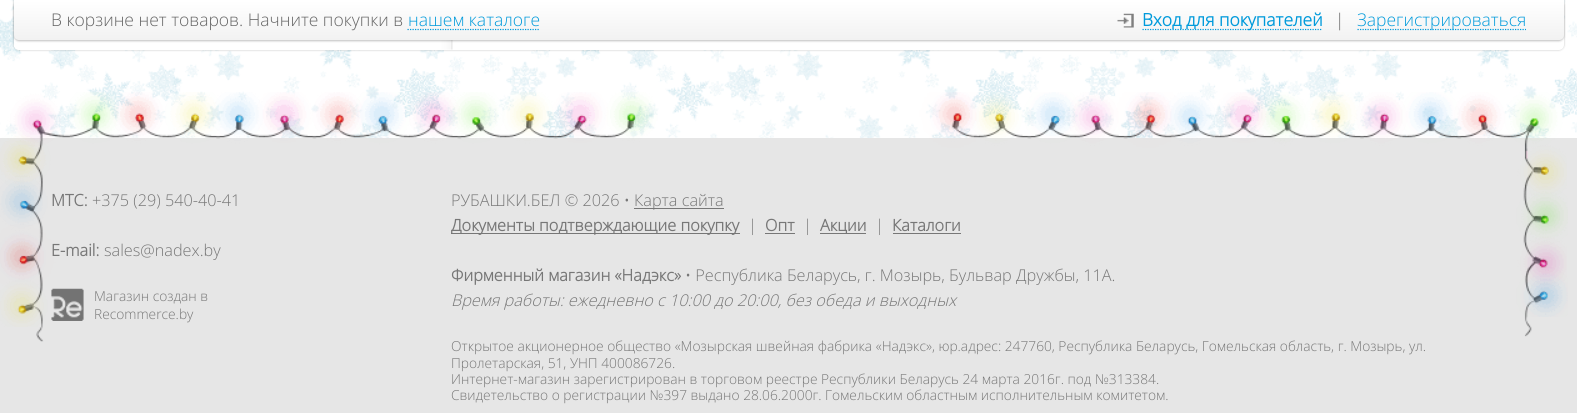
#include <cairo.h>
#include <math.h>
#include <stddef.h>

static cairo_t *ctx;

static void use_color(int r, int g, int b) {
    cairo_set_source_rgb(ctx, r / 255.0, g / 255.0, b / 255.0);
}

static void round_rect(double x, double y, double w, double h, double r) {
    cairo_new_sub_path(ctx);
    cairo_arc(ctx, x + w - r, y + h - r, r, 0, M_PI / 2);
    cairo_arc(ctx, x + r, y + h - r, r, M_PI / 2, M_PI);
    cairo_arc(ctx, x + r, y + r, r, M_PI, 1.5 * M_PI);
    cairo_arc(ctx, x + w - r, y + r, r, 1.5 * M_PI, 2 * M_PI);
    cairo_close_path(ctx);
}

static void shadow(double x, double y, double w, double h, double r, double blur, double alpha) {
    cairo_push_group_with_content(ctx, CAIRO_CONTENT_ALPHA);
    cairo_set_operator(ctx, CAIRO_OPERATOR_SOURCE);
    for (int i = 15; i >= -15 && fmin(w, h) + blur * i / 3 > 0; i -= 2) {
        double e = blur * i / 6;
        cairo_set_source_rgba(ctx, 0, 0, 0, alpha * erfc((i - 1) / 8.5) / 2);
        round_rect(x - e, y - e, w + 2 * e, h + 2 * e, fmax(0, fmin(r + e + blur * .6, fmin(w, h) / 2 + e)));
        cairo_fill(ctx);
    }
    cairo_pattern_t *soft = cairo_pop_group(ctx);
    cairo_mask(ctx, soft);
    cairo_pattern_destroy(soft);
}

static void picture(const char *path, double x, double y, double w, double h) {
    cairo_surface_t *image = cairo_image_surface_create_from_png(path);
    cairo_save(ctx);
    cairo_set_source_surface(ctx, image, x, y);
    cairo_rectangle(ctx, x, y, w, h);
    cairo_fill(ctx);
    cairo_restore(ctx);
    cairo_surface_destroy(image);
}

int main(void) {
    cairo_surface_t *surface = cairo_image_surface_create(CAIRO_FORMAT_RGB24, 1577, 413);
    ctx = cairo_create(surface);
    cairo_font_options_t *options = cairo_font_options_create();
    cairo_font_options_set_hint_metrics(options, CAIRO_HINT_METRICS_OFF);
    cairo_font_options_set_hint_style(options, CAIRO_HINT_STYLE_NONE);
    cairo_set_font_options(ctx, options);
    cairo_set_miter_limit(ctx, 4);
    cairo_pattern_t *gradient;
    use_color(255, 255, 255);
    cairo_paint(ctx);
    picture("img1.png", 0, 0, 1577, 138);
    use_color(0, 0, 0);
    shadow(14, -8, 1550, 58, 5, 1, 0.25);
    use_color(255, 255, 255);
    round_rect(14, -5, 1550, 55, 5);
    cairo_fill(ctx);
    picture("img2.png", 14, 35, 439, 15);
    use_color(0, 0, 0);
    shadow(14, 1, 1550, 40, 5, 1, 0.25);
    gradient = cairo_pattern_create_linear(14, 0, 14, 40);
    cairo_pattern_add_color_stop_rgba(gradient, 0, 1, 1, 1, 1);
    cairo_pattern_add_color_stop_rgba(gradient, 1, 0.949, 0.949, 0.949, 1);
    cairo_set_source(ctx, gradient);
    cairo_pattern_destroy(gradient);
    cairo_new_path(ctx);
    cairo_move_to(ctx, 14, 0);
    cairo_line_to(ctx, 1564, 0);
    cairo_line_to(ctx, 1564, 35);
    cairo_curve_to(ctx, 1564, 38, 1562, 40, 1559, 40);
    cairo_line_to(ctx, 19, 40);
    cairo_curve_to(ctx, 16, 40, 14, 38, 14, 35);
    cairo_close_path(ctx);
    cairo_fill(ctx);
    cairo_select_font_face(ctx, "Open Sans Light", CAIRO_FONT_SLANT_NORMAL, CAIRO_FONT_WEIGHT_NORMAL);
    cairo_set_font_size(ctx, 17.5);
    use_color(102, 102, 102);
    cairo_move_to(ctx, 51, 26);
    cairo_show_text(ctx, "В корзине нет товаров. Начните покупки в");
    cairo_new_path(ctx);
    cairo_move_to(ctx, 407.5, 29.5);
    cairo_line_to(ctx, 540, 29.5);
    use_color(0, 154, 219);
    cairo_set_line_width(ctx, 1.2);
    cairo_set_dash(ctx, (double[]){1.25, 1.25}, 2, 0);
    cairo_stroke(ctx);
    cairo_move_to(ctx, 408, 26);
    cairo_show_text(ctx, "нашем каталоге");
    picture("img3.png", 1117, 13, 17, 15);
    cairo_new_path(ctx);
    cairo_move_to(ctx, 1142.5, 29.5);
    cairo_line_to(ctx, 1322.5, 29.5);
    cairo_stroke(ctx);
    cairo_select_font_face(ctx, "Open Sans", CAIRO_FONT_SLANT_NORMAL, CAIRO_FONT_WEIGHT_BOLD);
    cairo_move_to(ctx, 1142, 26);
    cairo_show_text(ctx, "Вход для покупателей");
    cairo_select_font_face(ctx, "Open Sans Light", CAIRO_FONT_SLANT_NORMAL, CAIRO_FONT_WEIGHT_NORMAL);
    use_color(102, 102, 102);
    cairo_move_to(ctx, 1335, 26);
    cairo_show_text(ctx, "|");
    cairo_new_path(ctx);
    cairo_move_to(ctx, 1357.5, 29.5);
    cairo_line_to(ctx, 1526, 29.5);
    use_color(0, 154, 219);
    cairo_stroke(ctx);
    cairo_move_to(ctx, 1357, 26);
    cairo_show_text(ctx, "Зарегистрироваться");
    use_color(230, 230, 230);
    cairo_rectangle(ctx, 0, 138, 1577, 275);
    cairo_fill(ctx);
    picture("img6.png", 17, 113, 1532, 229);
    picture("img4.png", 0, 92, 1567, 235);
    picture("img5.png", 0, 92, 1568, 225);
    cairo_select_font_face(ctx, "Open Sans", CAIRO_FONT_SLANT_NORMAL, CAIRO_FONT_WEIGHT_BOLD);
    cairo_set_font_size(ctx, 16.25);
    use_color(119, 119, 119);
    cairo_move_to(ctx, 51, 206);
    cairo_show_text(ctx, "МТС:");
    cairo_select_font_face(ctx, "Open Sans Light", CAIRO_FONT_SLANT_NORMAL, CAIRO_FONT_WEIGHT_NORMAL);
    cairo_move_to(ctx, 92, 206);
    cairo_show_text(ctx, "+375 (29) 540-40-41");
    cairo_select_font_face(ctx, "Open Sans", CAIRO_FONT_SLANT_NORMAL, CAIRO_FONT_WEIGHT_BOLD);
    cairo_move_to(ctx, 51, 256);
    cairo_show_text(ctx, "E-mail:");
    cairo_select_font_face(ctx, "Open Sans Light", CAIRO_FONT_SLANT_NORMAL, CAIRO_FONT_WEIGHT_NORMAL);
    cairo_move_to(ctx, 104, 256);
    cairo_show_text(ctx, "sales@nadex.by");
    picture("img7.png", 51, 288, 33, 33);
    cairo_set_font_size(ctx, 13.75);
    cairo_move_to(ctx, 94, 301);
    cairo_show_text(ctx, "Магазин создан в");
    cairo_move_to(ctx, 94, 319);
    cairo_show_text(ctx, "Recommerce.by");
    cairo_set_font_size(ctx, 16.25);
    cairo_move_to(ctx, 451, 206);
    cairo_show_text(ctx, "РУБАШКИ.БЕЛ © 2026 •");
    cairo_rectangle(ctx, 634, 208, 90, 1);
    cairo_fill(ctx);
    cairo_move_to(ctx, 634, 206);
    cairo_show_text(ctx, "Карта сайта");
    cairo_rectangle(ctx, 451, 233, 289, 1);
    cairo_fill(ctx);
    cairo_select_font_face(ctx, "Open Sans", CAIRO_FONT_SLANT_NORMAL, CAIRO_FONT_WEIGHT_BOLD);
    cairo_move_to(ctx, 451, 231);
    cairo_show_text(ctx, "Документы подтверждающие покупку");
    cairo_select_font_face(ctx, "Open Sans Light", CAIRO_FONT_SLANT_NORMAL, CAIRO_FONT_WEIGHT_NORMAL);
    cairo_move_to(ctx, 748, 231);
    cairo_show_text(ctx, "|");
    cairo_select_font_face(ctx, "Open Sans", CAIRO_FONT_SLANT_NORMAL, CAIRO_FONT_WEIGHT_BOLD);
    cairo_move_to(ctx, 765, 231);
    cairo_show_text(ctx, "Опт");
    cairo_rectangle(ctx, 765, 233, 30, 1);
    cairo_fill(ctx);
    cairo_select_font_face(ctx, "Open Sans Light", CAIRO_FONT_SLANT_NORMAL, CAIRO_FONT_WEIGHT_NORMAL);
    cairo_move_to(ctx, 803, 231);
    cairo_show_text(ctx, "|");
    cairo_rectangle(ctx, 820, 233, 46, 1);
    cairo_fill(ctx);
    cairo_select_font_face(ctx, "Open Sans", CAIRO_FONT_SLANT_NORMAL, CAIRO_FONT_WEIGHT_BOLD);
    cairo_move_to(ctx, 820, 231);
    cairo_show_text(ctx, "Акции");
    cairo_select_font_face(ctx, "Open Sans Light", CAIRO_FONT_SLANT_NORMAL, CAIRO_FONT_WEIGHT_NORMAL);
    cairo_move_to(ctx, 875, 231);
    cairo_show_text(ctx, "|");
    cairo_select_font_face(ctx, "Open Sans", CAIRO_FONT_SLANT_NORMAL, CAIRO_FONT_WEIGHT_BOLD);
    cairo_move_to(ctx, 892, 231);
    cairo_show_text(ctx, "Каталоги");
    cairo_rectangle(ctx, 893, 233, 68, 1);
    cairo_fill(ctx);
    cairo_move_to(ctx, 451, 281);
    cairo_show_text(ctx, "Фирменный магазин «Надэкс»");
    cairo_select_font_face(ctx, "Open Sans Light", CAIRO_FONT_SLANT_NORMAL, CAIRO_FONT_WEIGHT_NORMAL);
    cairo_move_to(ctx, 685, 281);
    cairo_show_text(ctx, "• Республика Беларусь, г. Мозырь, Бульвар Дружбы, 11А.");
    cairo_select_font_face(ctx, "Open Sans Light", CAIRO_FONT_SLANT_ITALIC, CAIRO_FONT_WEIGHT_NORMAL);
    cairo_move_to(ctx, 451, 306);
    cairo_show_text(ctx, "Время работы: ежедневно с 10:00 до 20:00, без обеда и выходных");
    cairo_select_font_face(ctx, "Open Sans Light", CAIRO_FONT_SLANT_NORMAL, CAIRO_FONT_WEIGHT_NORMAL);
    cairo_set_font_size(ctx, 13.75);
    cairo_move_to(ctx, 451, 351);
    cairo_show_text(ctx, "Открытое акционерное общество «Мозырская швейная фабрика «Надэкс», юр.адрес: 247760, Республика Беларусь, Гомельская область, г. Мозырь, ул.");
    cairo_move_to(ctx, 451, 368);
    cairo_show_text(ctx, "Пролетарская, 51, УНП 400086726.");
    cairo_move_to(ctx, 451, 384);
    cairo_show_text(ctx, "Интернет-магазин зарегистрирован в торговом реестре Республики Беларусь 24 марта 2016г. под №313384.");
    cairo_move_to(ctx, 451, 400);
    cairo_show_text(ctx, "Свидетельство о регистрации №397 выдано 28.06.2000г. Гомельским областным исполнительным комитетом.");
    cairo_surface_write_to_png(surface, "result.png");
    cairo_font_options_destroy(options);
    cairo_destroy(ctx);
    cairo_surface_destroy(surface);
    return 0;
}
